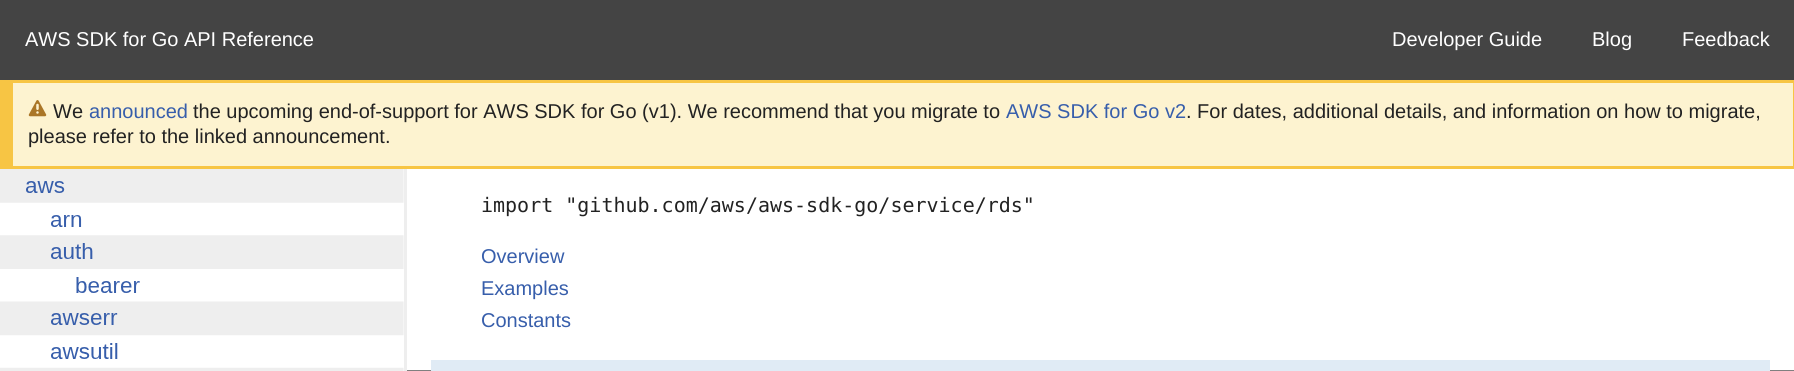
#include <cairo.h>
#include <math.h>
#include <stddef.h>

static cairo_t *ctx;

static void use_color(int r, int g, int b) {
    cairo_set_source_rgb(ctx, r / 255.0, g / 255.0, b / 255.0);
}

static void picture(const char *path, double x, double y, double w, double h) {
    cairo_surface_t *image = cairo_image_surface_create_from_png(path);
    cairo_save(ctx);
    cairo_set_source_surface(ctx, image, x, y);
    cairo_rectangle(ctx, x, y, w, h);
    cairo_fill(ctx);
    cairo_restore(ctx);
    cairo_surface_destroy(image);
}

int main(void) {
    cairo_surface_t *surface = cairo_image_surface_create(CAIRO_FORMAT_RGB24, 1794, 371);
    ctx = cairo_create(surface);
    cairo_font_options_t *options = cairo_font_options_create();
    cairo_font_options_set_hint_metrics(options, CAIRO_HINT_METRICS_OFF);
    cairo_font_options_set_hint_style(options, CAIRO_HINT_STYLE_NONE);
    cairo_set_font_options(ctx, options);
    cairo_set_miter_limit(ctx, 4);
    use_color(255, 255, 255);
    cairo_paint(ctx);
    use_color(68, 68, 68);
    cairo_rectangle(ctx, 0, 0, 1794, 80);
    cairo_fill(ctx);
    cairo_select_font_face(ctx, "Liberation Sans", CAIRO_FONT_SLANT_NORMAL, CAIRO_FONT_WEIGHT_NORMAL);
    cairo_set_font_size(ctx, 20);
    use_color(255, 255, 255);
    cairo_move_to(ctx, 25, 46);
    cairo_show_text(ctx, "AWS SDK for Go API Reference");
    cairo_move_to(ctx, 1392, 46);
    cairo_show_text(ctx, "Developer Guide");
    cairo_move_to(ctx, 1592, 46);
    cairo_show_text(ctx, "Blog");
    cairo_move_to(ctx, 1682, 46);
    cairo_show_text(ctx, "Feedback");
    use_color(253, 243, 208);
    cairo_rectangle(ctx, 13, 83, 1780, 83);
    cairo_fill(ctx);
    use_color(247, 197, 68);
    cairo_rectangle(ctx, 13, 80, 1781, 3);
    cairo_fill(ctx);
    cairo_rectangle(ctx, 1793, 80, 1, 89);
    cairo_fill(ctx);
    cairo_rectangle(ctx, 13, 166, 1781, 3);
    cairo_fill(ctx);
    cairo_rectangle(ctx, 0, 80, 13, 89);
    cairo_fill(ctx);
    picture("img1.png", 28, 100, 19, 17);
    use_color(34, 34, 34);
    cairo_move_to(ctx, 53, 118);
    cairo_show_text(ctx, "We");
    use_color(55, 94, 171);
    cairo_move_to(ctx, 89, 118);
    cairo_show_text(ctx, "announced");
    use_color(34, 34, 34);
    cairo_move_to(ctx, 193, 118);
    cairo_show_text(ctx, "the upcoming end-of-support for AWS SDK for Go (v1). We recommend that you migrate to");
    use_color(55, 94, 171);
    cairo_move_to(ctx, 1006, 118);
    cairo_show_text(ctx, "AWS SDK for Go v2");
    use_color(34, 34, 34);
    cairo_move_to(ctx, 1186, 118);
    cairo_show_text(ctx, ". For dates, additional details, and information on how to migrate,");
    cairo_move_to(ctx, 28, 143);
    cairo_show_text(ctx, "please refer to the linked announcement.");
    use_color(238, 238, 238);
    cairo_rectangle(ctx, 404, 169, 3, 202);
    cairo_fill(ctx);
    picture("img2.png", 0, 169, 404, 202);
    cairo_select_font_face(ctx, "DejaVu Sans Mono", CAIRO_FONT_SLANT_NORMAL, CAIRO_FONT_WEIGHT_NORMAL);
    use_color(34, 34, 34);
    cairo_move_to(ctx, 481, 212);
    cairo_show_text(ctx, "import \"github.com/aws/aws-sdk-go/service/rds\"");
    cairo_select_font_face(ctx, "Liberation Sans", CAIRO_FONT_SLANT_NORMAL, CAIRO_FONT_WEIGHT_NORMAL);
    use_color(55, 94, 171);
    cairo_move_to(ctx, 481, 263);
    cairo_show_text(ctx, "Overview");
    cairo_move_to(ctx, 481, 295);
    cairo_show_text(ctx, "Examples");
    cairo_move_to(ctx, 481, 327);
    cairo_show_text(ctx, "Constants");
    use_color(128, 128, 128);
    cairo_rectangle(ctx, 407, 370, 1387, 1);
    cairo_fill(ctx);
    use_color(224, 235, 245);
    cairo_rectangle(ctx, 431, 360, 1339, 11);
    cairo_fill(ctx);
    cairo_surface_write_to_png(surface, "result.png");
    cairo_font_options_destroy(options);
    cairo_destroy(ctx);
    cairo_surface_destroy(surface);
    return 0;
}
